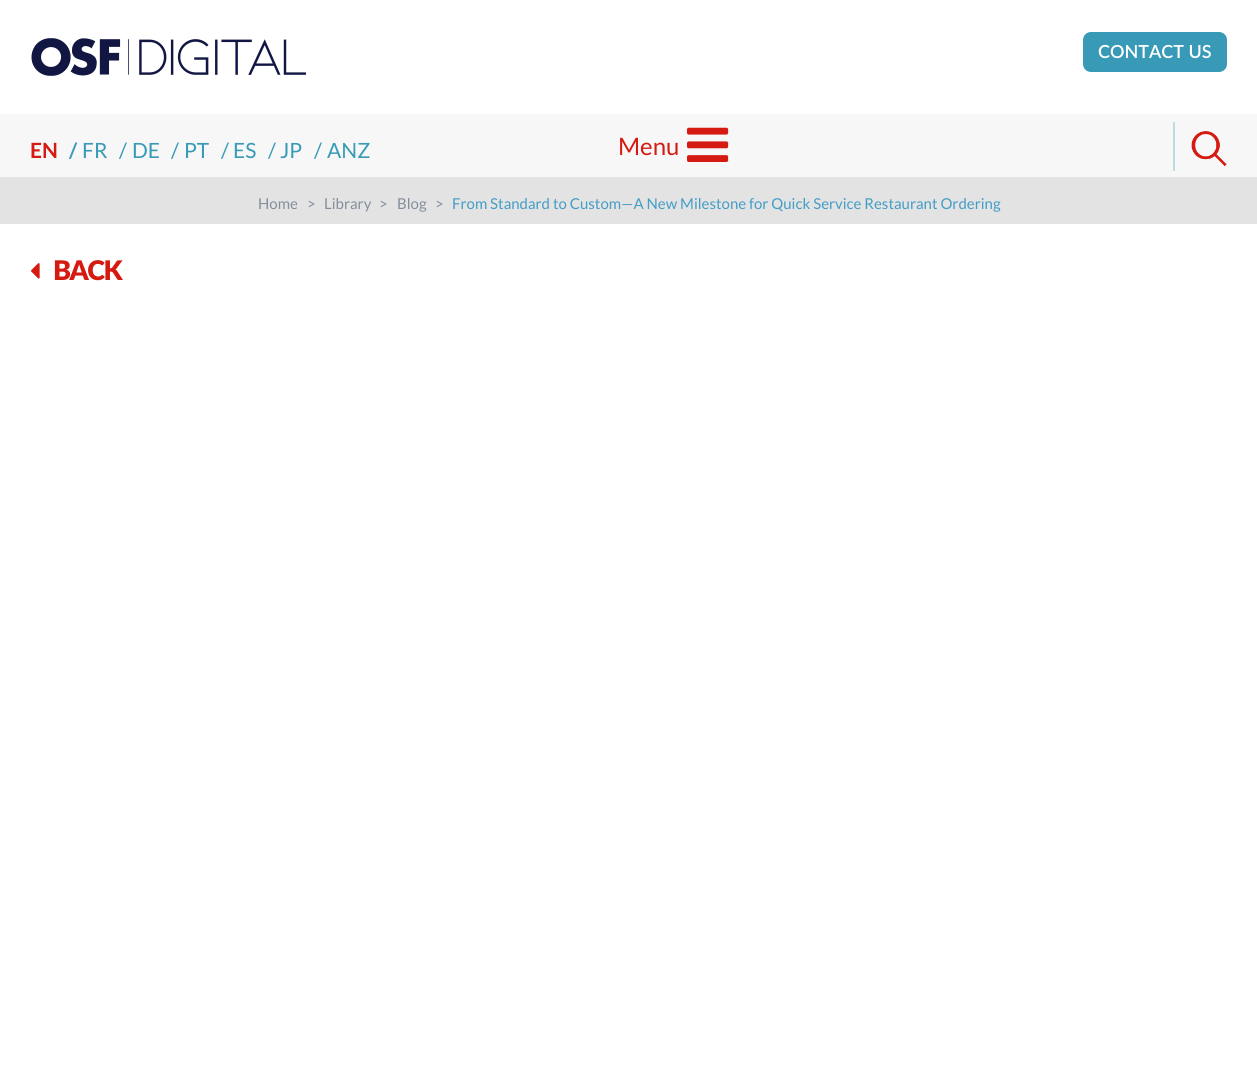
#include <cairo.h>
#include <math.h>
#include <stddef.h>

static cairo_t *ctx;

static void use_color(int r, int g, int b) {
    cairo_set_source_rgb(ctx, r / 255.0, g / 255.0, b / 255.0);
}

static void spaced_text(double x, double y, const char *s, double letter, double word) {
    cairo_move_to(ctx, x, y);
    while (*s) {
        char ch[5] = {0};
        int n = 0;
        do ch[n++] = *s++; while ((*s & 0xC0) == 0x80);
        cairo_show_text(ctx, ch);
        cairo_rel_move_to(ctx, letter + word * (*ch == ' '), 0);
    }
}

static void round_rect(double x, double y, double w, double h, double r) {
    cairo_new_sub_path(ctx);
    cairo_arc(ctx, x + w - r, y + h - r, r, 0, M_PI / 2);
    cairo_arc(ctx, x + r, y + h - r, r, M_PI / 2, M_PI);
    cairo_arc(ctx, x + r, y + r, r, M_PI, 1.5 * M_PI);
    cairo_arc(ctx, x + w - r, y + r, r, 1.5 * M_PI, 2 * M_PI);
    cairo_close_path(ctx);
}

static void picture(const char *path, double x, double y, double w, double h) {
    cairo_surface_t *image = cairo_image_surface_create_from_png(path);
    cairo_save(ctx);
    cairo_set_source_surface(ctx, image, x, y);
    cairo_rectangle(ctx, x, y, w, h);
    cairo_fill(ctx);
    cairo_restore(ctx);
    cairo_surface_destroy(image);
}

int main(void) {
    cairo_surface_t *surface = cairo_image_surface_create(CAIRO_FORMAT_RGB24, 1257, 1077);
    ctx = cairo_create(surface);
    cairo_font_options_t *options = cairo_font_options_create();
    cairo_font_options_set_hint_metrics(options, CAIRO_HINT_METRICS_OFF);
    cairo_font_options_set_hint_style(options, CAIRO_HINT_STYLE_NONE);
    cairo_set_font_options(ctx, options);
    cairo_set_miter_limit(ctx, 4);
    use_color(255, 255, 255);
    cairo_paint(ctx);
    picture("img1.png", 31, 38, 275, 38);
    use_color(247, 247, 247);
    cairo_rectangle(ctx, 0, 114, 1257, 63);
    cairo_fill(ctx);
    use_color(56, 154, 182);
    round_rect(1083, 32, 144, 40, 8);
    cairo_fill(ctx);
    cairo_select_font_face(ctx, "Lato SemiBold", CAIRO_FONT_SLANT_NORMAL, CAIRO_FONT_WEIGHT_NORMAL);
    cairo_set_font_size(ctx, 18);
    use_color(255, 255, 255);
    cairo_move_to(ctx, 1098, 58);
    cairo_show_text(ctx, "CONTACT US");
    cairo_select_font_face(ctx, "Lato", CAIRO_FONT_SLANT_NORMAL, CAIRO_FONT_WEIGHT_BOLD);
    cairo_set_font_size(ctx, 21);
    use_color(212, 26, 17);
    cairo_move_to(ctx, 30, 158);
    cairo_show_text(ctx, "EN");
    use_color(56, 154, 182);
    cairo_move_to(ctx, 69, 158);
    cairo_show_text(ctx, "/");
    cairo_select_font_face(ctx, "Lato", CAIRO_FONT_SLANT_NORMAL, CAIRO_FONT_WEIGHT_NORMAL);
    cairo_move_to(ctx, 82, 158);
    cairo_show_text(ctx, "FR");
    cairo_move_to(ctx, 119, 158);
    cairo_show_text(ctx, "/");
    cairo_move_to(ctx, 132, 158);
    cairo_show_text(ctx, "DE");
    cairo_move_to(ctx, 171, 158);
    cairo_show_text(ctx, "/");
    cairo_move_to(ctx, 184, 158);
    cairo_show_text(ctx, "PT");
    cairo_move_to(ctx, 221, 158);
    cairo_show_text(ctx, "/");
    cairo_move_to(ctx, 233, 158);
    cairo_show_text(ctx, "ES");
    cairo_move_to(ctx, 268, 158);
    cairo_show_text(ctx, "/");
    cairo_move_to(ctx, 280, 158);
    cairo_show_text(ctx, "JP");
    cairo_move_to(ctx, 314, 158);
    cairo_show_text(ctx, "/");
    cairo_move_to(ctx, 327, 158);
    cairo_show_text(ctx, "ANZ");
    picture("img2.png", 1191, 131, 36, 36);
    use_color(191, 218, 225);
    cairo_rectangle(ctx, 1173, 122, 2, 49);
    cairo_fill(ctx);
    cairo_set_font_size(ctx, 24);
    use_color(212, 26, 17);
    cairo_move_to(ctx, 618, 155);
    cairo_show_text(ctx, "Menu");
    picture("img3.png", 687, 127, 42, 35);
    use_color(227, 227, 227);
    cairo_rectangle(ctx, 0, 177, 1257, 47);
    cairo_fill(ctx);
    cairo_set_font_size(ctx, 15);
    use_color(132, 142, 156);
    cairo_move_to(ctx, 258, 209);
    cairo_show_text(ctx, "Home");
    cairo_move_to(ctx, 307, 209);
    cairo_show_text(ctx, ">");
    cairo_move_to(ctx, 324, 209);
    cairo_show_text(ctx, "Library");
    cairo_move_to(ctx, 379, 209);
    cairo_show_text(ctx, ">");
    cairo_move_to(ctx, 397, 209);
    cairo_show_text(ctx, "Blog");
    cairo_move_to(ctx, 435, 209);
    cairo_show_text(ctx, ">");
    use_color(67, 157, 197);
    cairo_move_to(ctx, 452, 209);
    cairo_show_text(ctx, "From Standard to Custom—A New Milestone for Quick Service Restaurant Ordering");
    picture("img4.png", 31, 263, 9, 16);
    cairo_select_font_face(ctx, "Lato Black", CAIRO_FONT_SLANT_NORMAL, CAIRO_FONT_WEIGHT_NORMAL);
    cairo_set_font_size(ctx, 27);
    use_color(212, 26, 17);
    spaced_text(53, 280, "BACK", -1.5, 0);
    cairo_surface_write_to_png(surface, "result.png");
    cairo_font_options_destroy(options);
    cairo_destroy(ctx);
    cairo_surface_destroy(surface);
    return 0;
}
